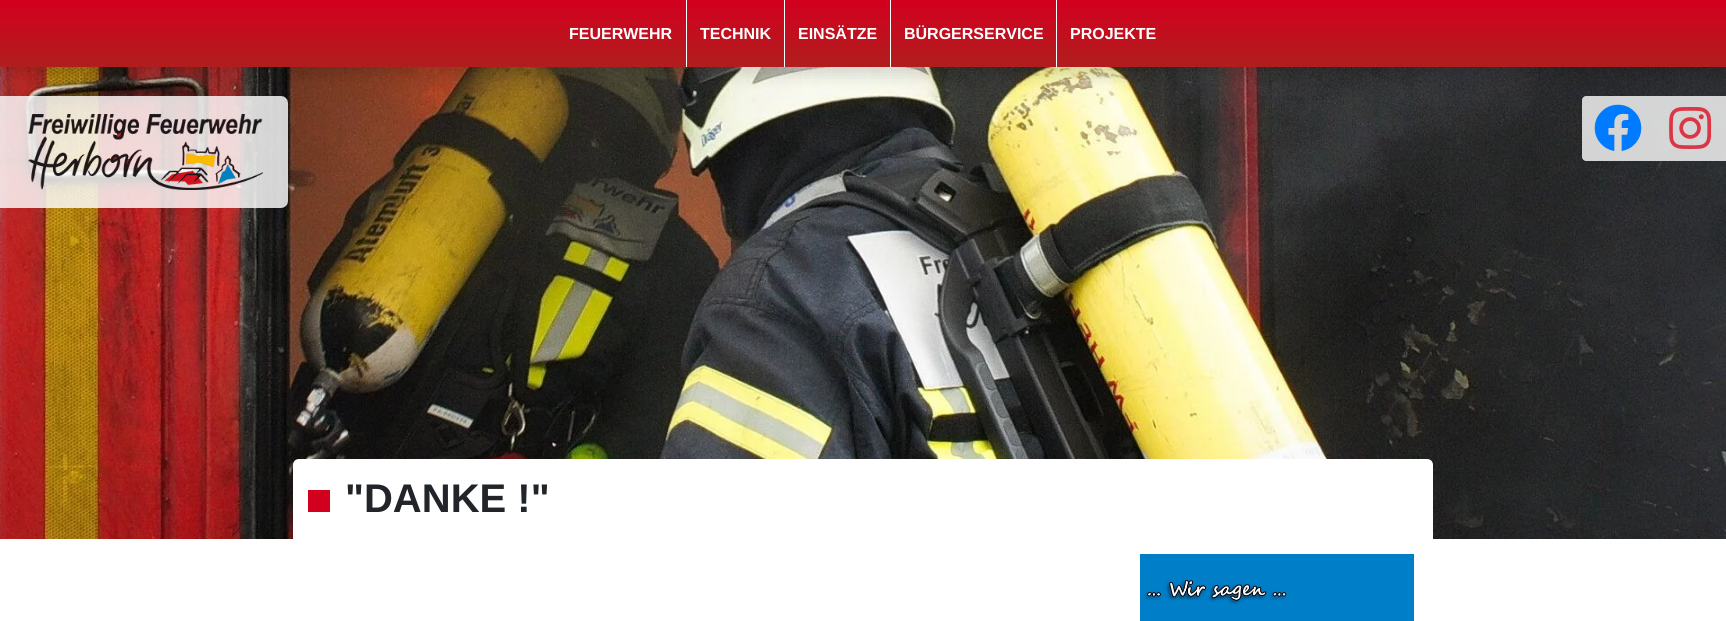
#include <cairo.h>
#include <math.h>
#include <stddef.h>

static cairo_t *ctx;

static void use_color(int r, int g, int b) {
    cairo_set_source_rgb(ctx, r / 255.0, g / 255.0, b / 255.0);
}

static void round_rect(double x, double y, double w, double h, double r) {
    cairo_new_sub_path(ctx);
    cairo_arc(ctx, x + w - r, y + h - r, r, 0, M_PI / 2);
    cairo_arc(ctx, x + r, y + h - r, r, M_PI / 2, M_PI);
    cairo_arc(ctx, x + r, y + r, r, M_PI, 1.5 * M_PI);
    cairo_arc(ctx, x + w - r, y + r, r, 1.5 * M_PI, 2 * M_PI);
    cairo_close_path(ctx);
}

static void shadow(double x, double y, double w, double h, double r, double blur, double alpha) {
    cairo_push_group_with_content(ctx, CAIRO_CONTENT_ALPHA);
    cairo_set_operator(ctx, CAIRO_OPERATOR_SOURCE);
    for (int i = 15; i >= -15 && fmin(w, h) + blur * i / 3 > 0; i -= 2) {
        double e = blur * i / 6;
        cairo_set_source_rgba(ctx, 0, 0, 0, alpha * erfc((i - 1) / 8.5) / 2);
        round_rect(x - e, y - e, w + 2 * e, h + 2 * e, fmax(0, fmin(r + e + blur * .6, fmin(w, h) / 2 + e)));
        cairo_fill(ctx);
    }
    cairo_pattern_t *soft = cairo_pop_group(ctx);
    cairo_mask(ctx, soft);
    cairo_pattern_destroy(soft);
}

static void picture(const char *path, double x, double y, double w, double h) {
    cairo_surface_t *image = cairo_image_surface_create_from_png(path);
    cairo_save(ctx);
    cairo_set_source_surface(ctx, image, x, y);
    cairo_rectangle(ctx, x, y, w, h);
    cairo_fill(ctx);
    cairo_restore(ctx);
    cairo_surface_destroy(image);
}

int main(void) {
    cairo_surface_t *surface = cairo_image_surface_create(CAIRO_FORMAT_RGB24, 1726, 621);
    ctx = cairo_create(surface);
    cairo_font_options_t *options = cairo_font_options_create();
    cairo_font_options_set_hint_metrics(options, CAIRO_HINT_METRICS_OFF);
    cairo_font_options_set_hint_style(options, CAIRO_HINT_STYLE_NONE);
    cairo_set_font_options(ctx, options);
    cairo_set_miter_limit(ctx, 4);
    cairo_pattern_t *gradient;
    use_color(255, 255, 255);
    cairo_paint(ctx);
    picture("img1.png", 0, 67, 1726, 472);
    cairo_save(ctx);
    cairo_set_fill_rule(ctx, CAIRO_FILL_RULE_EVEN_ODD);
    cairo_new_path(ctx);
    cairo_move_to(ctx, 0, 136);
    cairo_line_to(ctx, 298, 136);
    cairo_line_to(ctx, 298, 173);
    cairo_line_to(ctx, 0, 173);
    cairo_close_path(ctx);
    cairo_move_to(ctx, 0, 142);
    cairo_line_to(ctx, 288, 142);
    cairo_line_to(ctx, 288, 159);
    cairo_line_to(ctx, 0, 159);
    cairo_close_path(ctx);
    cairo_clip(ctx);
    use_color(0, 0, 0);
    shadow(0, 146, 288, 17, 0, 3, 0.1);
    cairo_restore(ctx);
    picture("img2.png", 0, 96, 288, 112);
    cairo_set_source_rgba(ctx, 1, 1, 1, 0.8);
    cairo_new_path(ctx);
    cairo_move_to(ctx, 1586, 96);
    cairo_line_to(ctx, 1726, 96);
    cairo_line_to(ctx, 1726, 161);
    cairo_line_to(ctx, 1586, 161);
    cairo_curve_to(ctx, 1584, 161, 1582, 159, 1582, 157);
    cairo_line_to(ctx, 1582, 100);
    cairo_curve_to(ctx, 1582, 98, 1584, 96, 1586, 96);
    cairo_close_path(ctx);
    cairo_fill(ctx);
    use_color(0, 0, 0);
    shadow(0, 8, 1726, 67, 0, 8, 0.15);
    gradient = cairo_pattern_create_linear(863, 0, 863, 67);
    cairo_pattern_add_color_stop_rgba(gradient, 0, 0.824, 0, 0.118, 1);
    cairo_pattern_add_color_stop_rgba(gradient, 1, 0.69, 0.118, 0.118, 1);
    cairo_set_source(ctx, gradient);
    cairo_pattern_destroy(gradient);
    cairo_rectangle(ctx, 0, 0, 1726, 67);
    cairo_fill(ctx);
    use_color(255, 255, 255);
    cairo_rectangle(ctx, 686, 0, 1, 67);
    cairo_fill(ctx);
    cairo_select_font_face(ctx, "Liberation Sans", CAIRO_FONT_SLANT_NORMAL, CAIRO_FONT_WEIGHT_BOLD);
    cairo_set_font_size(ctx, 16);
    cairo_move_to(ctx, 569, 39);
    cairo_show_text(ctx, "FEUERWEHR");
    cairo_rectangle(ctx, 784, 0, 1, 67);
    cairo_fill(ctx);
    cairo_move_to(ctx, 700, 39);
    cairo_show_text(ctx, "TECHNIK");
    cairo_rectangle(ctx, 890, 0, 1, 67);
    cairo_fill(ctx);
    cairo_move_to(ctx, 798, 39);
    cairo_show_text(ctx, "EINSÄTZE");
    cairo_rectangle(ctx, 1056, 0, 1, 67);
    cairo_fill(ctx);
    cairo_move_to(ctx, 904, 39);
    cairo_show_text(ctx, "BÜRGERSERVICE");
    cairo_move_to(ctx, 1070, 39);
    cairo_show_text(ctx, "PROJEKTE");
    picture("img3.png", 1594, 104, 48, 47);
    picture("img4.png", 1669, 107, 43, 42);
    cairo_new_path(ctx);
    cairo_move_to(ctx, 299, 459);
    cairo_line_to(ctx, 1427, 459);
    cairo_curve_to(ctx, 1430.5, 459, 1433, 461.5, 1433, 465);
    cairo_line_to(ctx, 1433, 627);
    cairo_line_to(ctx, 293, 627);
    cairo_line_to(ctx, 293, 465);
    cairo_curve_to(ctx, 293, 461.5, 295.5, 459, 299, 459);
    cairo_close_path(ctx);
    cairo_fill(ctx);
    use_color(210, 0, 30);
    cairo_rectangle(ctx, 308, 490, 22, 22);
    cairo_fill(ctx);
    cairo_set_font_size(ctx, 40);
    use_color(33, 37, 41);
    cairo_move_to(ctx, 345, 512);
    cairo_show_text(ctx, "\"DANKE !\"");
    picture("img5.png", 1140, 554, 274, 67);
    cairo_surface_write_to_png(surface, "result.png");
    cairo_font_options_destroy(options);
    cairo_destroy(ctx);
    cairo_surface_destroy(surface);
    return 0;
}
